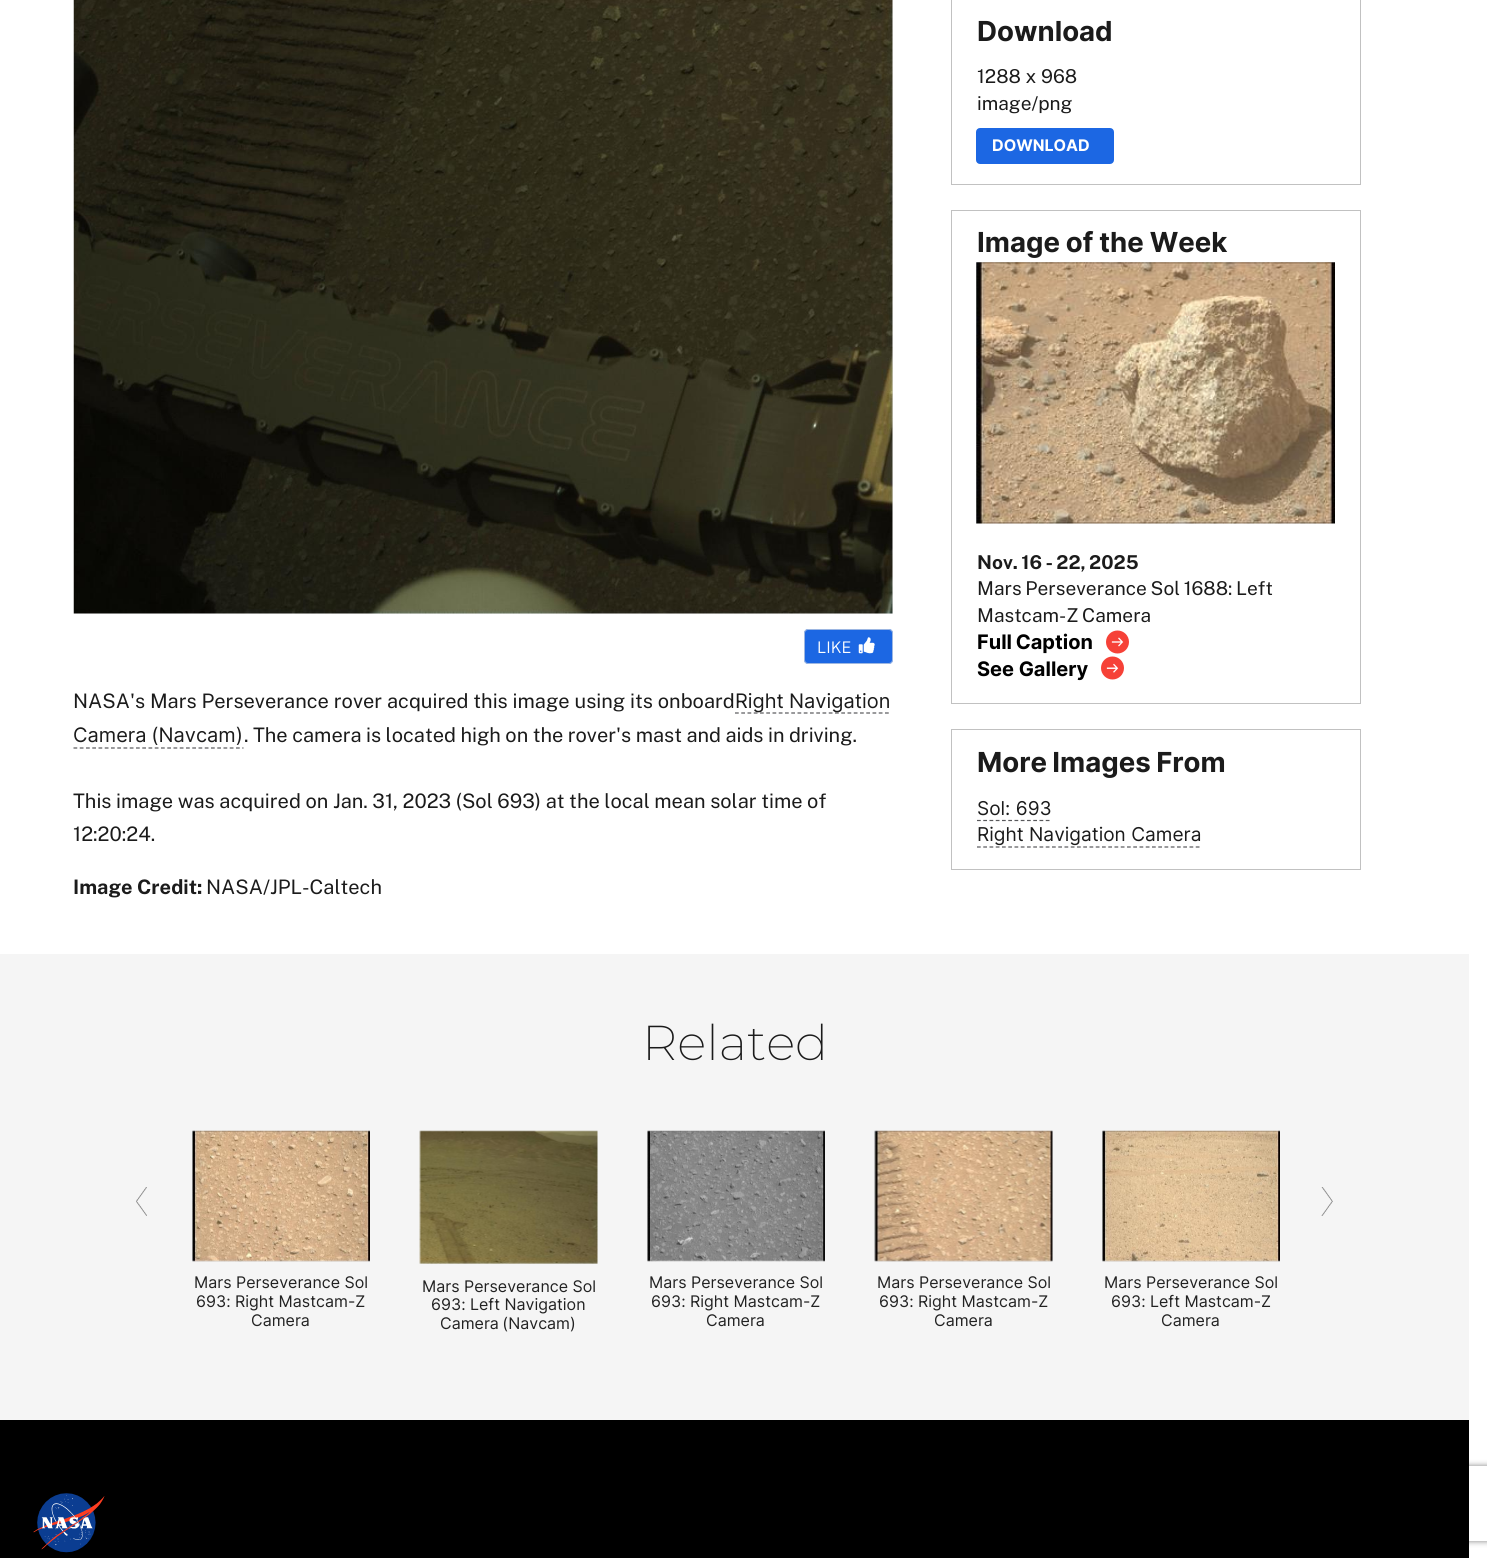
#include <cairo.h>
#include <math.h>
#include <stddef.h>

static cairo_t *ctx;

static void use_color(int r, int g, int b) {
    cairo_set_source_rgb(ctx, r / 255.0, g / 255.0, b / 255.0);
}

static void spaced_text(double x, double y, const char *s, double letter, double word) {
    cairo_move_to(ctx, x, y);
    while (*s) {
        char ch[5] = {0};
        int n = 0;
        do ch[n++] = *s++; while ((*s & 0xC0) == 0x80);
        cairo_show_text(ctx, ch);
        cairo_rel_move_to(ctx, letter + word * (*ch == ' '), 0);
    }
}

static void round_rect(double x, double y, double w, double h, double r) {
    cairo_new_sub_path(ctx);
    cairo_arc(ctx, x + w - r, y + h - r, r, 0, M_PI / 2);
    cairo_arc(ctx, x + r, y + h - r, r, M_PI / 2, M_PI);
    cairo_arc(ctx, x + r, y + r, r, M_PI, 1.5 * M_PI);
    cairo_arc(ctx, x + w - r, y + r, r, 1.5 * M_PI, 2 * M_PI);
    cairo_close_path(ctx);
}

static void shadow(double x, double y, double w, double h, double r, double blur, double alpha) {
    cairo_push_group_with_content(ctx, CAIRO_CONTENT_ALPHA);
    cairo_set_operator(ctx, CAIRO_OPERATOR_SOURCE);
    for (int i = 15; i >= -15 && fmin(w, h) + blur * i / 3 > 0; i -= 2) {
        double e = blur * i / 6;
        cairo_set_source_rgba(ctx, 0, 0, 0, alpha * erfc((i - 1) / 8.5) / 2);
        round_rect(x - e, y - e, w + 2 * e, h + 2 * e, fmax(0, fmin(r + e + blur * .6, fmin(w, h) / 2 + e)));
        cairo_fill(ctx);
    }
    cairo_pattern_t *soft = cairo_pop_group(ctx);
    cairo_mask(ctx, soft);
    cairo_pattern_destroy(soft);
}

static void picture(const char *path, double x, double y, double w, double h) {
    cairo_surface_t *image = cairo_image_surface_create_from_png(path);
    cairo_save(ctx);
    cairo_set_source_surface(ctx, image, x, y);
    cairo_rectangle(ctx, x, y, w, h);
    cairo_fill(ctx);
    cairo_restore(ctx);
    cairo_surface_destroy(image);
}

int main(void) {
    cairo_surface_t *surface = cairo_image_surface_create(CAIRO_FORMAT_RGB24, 1487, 1558);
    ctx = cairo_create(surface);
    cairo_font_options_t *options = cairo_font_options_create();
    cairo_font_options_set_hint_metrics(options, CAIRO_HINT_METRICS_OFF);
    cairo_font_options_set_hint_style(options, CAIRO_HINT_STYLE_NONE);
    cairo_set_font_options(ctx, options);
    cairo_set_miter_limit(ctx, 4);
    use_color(255, 255, 255);
    cairo_paint(ctx);
    picture("img1.png", 73, 0, 820, 614);
    use_color(28, 103, 227);
    round_rect(804, 629, 89, 35, 4);
    cairo_fill(ctx);
    round_rect(804.5, 629.5, 88, 34, 3.5);
    cairo_set_source_rgba(ctx, 0.886, 0.886, 0.886, 0.65);
    cairo_set_line_width(ctx, 1);
    cairo_stroke(ctx);
    cairo_select_font_face(ctx, "Public Sans Light", CAIRO_FONT_SLANT_NORMAL, CAIRO_FONT_WEIGHT_NORMAL);
    cairo_set_font_size(ctx, 16);
    use_color(255, 255, 255);
    cairo_move_to(ctx, 817, 653);
    cairo_show_text(ctx, "LIKE");
    picture("img2.png", 858, 637, 17, 17);
    cairo_select_font_face(ctx, "Public Sans", CAIRO_FONT_SLANT_NORMAL, CAIRO_FONT_WEIGHT_NORMAL);
    cairo_set_font_size(ctx, 20);
    use_color(27, 27, 27);
    cairo_move_to(ctx, 73, 708);
    cairo_show_text(ctx, "NASA's Mars Perseverance rover acquired this image using its onboard");
    cairo_new_path(ctx);
    cairo_move_to(ctx, 735, 713);
    cairo_line_to(ctx, 890.5, 713);
    use_color(88, 88, 91);
    cairo_set_line_width(ctx, 1.2);
    cairo_set_dash(ctx, (double[]){3.75, 2.5}, 2, 0);
    cairo_stroke(ctx);
    cairo_select_font_face(ctx, "Inter", CAIRO_FONT_SLANT_NORMAL, CAIRO_FONT_WEIGHT_NORMAL);
    use_color(27, 27, 27);
    spaced_text(735, 708, "Right Navigation", 0, -0.4);
    spaced_text(73, 742, "Camera (Navcam)", 0, -1);
    cairo_new_path(ctx);
    cairo_move_to(ctx, 73.5, 748);
    cairo_line_to(ctx, 243.5, 748);
    use_color(88, 88, 91);
    cairo_stroke(ctx);
    cairo_select_font_face(ctx, "Public Sans", CAIRO_FONT_SLANT_NORMAL, CAIRO_FONT_WEIGHT_NORMAL);
    use_color(27, 27, 27);
    spaced_text(244, 742, ". The camera is located high on the rover's mast and aids in driving.", 0, -0.4);
    spaced_text(73, 808, "This image was acquired on Jan. 31, 2023 (Sol 693) at the local mean solar time of", 0, -0.25);
    cairo_move_to(ctx, 73, 841);
    cairo_show_text(ctx, "12:20:24.");
    cairo_select_font_face(ctx, "Public Sans", CAIRO_FONT_SLANT_NORMAL, CAIRO_FONT_WEIGHT_BOLD);
    cairo_move_to(ctx, 73, 894);
    cairo_show_text(ctx, "Image Credit:");
    cairo_select_font_face(ctx, "Public Sans", CAIRO_FONT_SLANT_NORMAL, CAIRO_FONT_WEIGHT_NORMAL);
    cairo_move_to(ctx, 206, 894);
    cairo_show_text(ctx, "NASA/JPL-Caltech");
    cairo_rectangle(ctx, 951.5, -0.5, 409, 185);
    use_color(193, 193, 193);
    cairo_set_line_width(ctx, 1);
    cairo_set_dash(ctx, NULL, 0, 0);
    cairo_stroke(ctx);
    cairo_select_font_face(ctx, "Inter", CAIRO_FONT_SLANT_NORMAL, CAIRO_FONT_WEIGHT_BOLD);
    cairo_set_font_size(ctx, 27.6);
    use_color(27, 27, 27);
    cairo_move_to(ctx, 977, 41);
    cairo_show_text(ctx, "Download");
    cairo_select_font_face(ctx, "Public Sans", CAIRO_FONT_SLANT_NORMAL, CAIRO_FONT_WEIGHT_NORMAL);
    cairo_set_font_size(ctx, 19.1);
    cairo_move_to(ctx, 977, 83);
    cairo_show_text(ctx, "1288 x 968");
    cairo_move_to(ctx, 977, 110);
    cairo_show_text(ctx, "image/png");
    use_color(28, 103, 227);
    round_rect(977.5, 129.5, 135, 33, 2.5);
    cairo_fill_preserve(ctx);
    cairo_set_line_width(ctx, 3);
    cairo_stroke(ctx);
    cairo_select_font_face(ctx, "Inter", CAIRO_FONT_SLANT_NORMAL, CAIRO_FONT_WEIGHT_BOLD);
    cairo_set_font_size(ctx, 16);
    use_color(255, 255, 255);
    cairo_move_to(ctx, 992, 151);
    cairo_show_text(ctx, "DOWNLOAD");
    cairo_rectangle(ctx, 951.5, 210.5, 409, 493);
    use_color(193, 193, 193);
    cairo_set_line_width(ctx, 1);
    cairo_stroke(ctx);
    cairo_set_font_size(ctx, 27.6);
    use_color(27, 27, 27);
    spaced_text(977, 252, "Image of the Week", 0, -0.5);
    picture("img3.png", 976, 262, 359, 262);
    cairo_select_font_face(ctx, "Public Sans", CAIRO_FONT_SLANT_NORMAL, CAIRO_FONT_WEIGHT_BOLD);
    cairo_set_font_size(ctx, 19.1);
    spaced_text(977, 569, "Nov. 16 - 22, 2025", 0, -1);
    cairo_select_font_face(ctx, "Public Sans", CAIRO_FONT_SLANT_NORMAL, CAIRO_FONT_WEIGHT_NORMAL);
    spaced_text(977, 595, "Mars Perseverance Sol 1688: Left", 0, -1);
    spaced_text(977, 622, "Mastcam-Z Camera", 0, -1);
    cairo_select_font_face(ctx, "Inter", CAIRO_FONT_SLANT_NORMAL, CAIRO_FONT_WEIGHT_BOLD);
    cairo_set_font_size(ctx, 20);
    use_color(0, 0, 0);
    spaced_text(977, 649, "Full Caption", 0, -1);
    picture("img4.png", 1106, 630, 23, 24);
    cairo_move_to(ctx, 977, 676);
    cairo_show_text(ctx, "See Gallery");
    picture("img5.png", 1101, 656, 23, 24);
    cairo_rectangle(ctx, 951.5, 729.5, 409, 140);
    use_color(193, 193, 193);
    cairo_stroke(ctx);
    cairo_set_font_size(ctx, 27.6);
    use_color(27, 27, 27);
    spaced_text(977, 772, "More Images From", 0, -1);
    cairo_select_font_face(ctx, "Inter", CAIRO_FONT_SLANT_NORMAL, CAIRO_FONT_WEIGHT_NORMAL);
    cairo_set_font_size(ctx, 19.1);
    cairo_move_to(ctx, 977, 815);
    cairo_show_text(ctx, "Sol: 693");
    cairo_new_path(ctx);
    cairo_move_to(ctx, 977, 820.5);
    cairo_line_to(ctx, 1051.5, 820.5);
    use_color(88, 88, 91);
    cairo_set_line_width(ctx, 1.2);
    cairo_set_dash(ctx, (double[]){3.75, 2.5}, 2, 0);
    cairo_stroke(ctx);
    use_color(27, 27, 27);
    cairo_move_to(ctx, 977, 841);
    cairo_show_text(ctx, "Right Navigation Camera");
    cairo_new_path(ctx);
    cairo_move_to(ctx, 977, 847);
    cairo_line_to(ctx, 1201, 847);
    use_color(88, 88, 91);
    cairo_stroke(ctx);
    use_color(245, 245, 245);
    cairo_rectangle(ctx, 0, 954, 1469, 466);
    cairo_fill(ctx);
    cairo_select_font_face(ctx, "Montserrat ExtraLight", CAIRO_FONT_SLANT_NORMAL, CAIRO_FONT_WEIGHT_NORMAL);
    cairo_set_font_size(ctx, 49);
    use_color(27, 27, 27);
    cairo_move_to(ctx, 642, 1060);
    cairo_show_text(ctx, "Related");
    picture("img6.png", 136, 1187, 11, 29);
    picture("img7.png", 1321, 1187, 12, 29);
    picture("img8.png", 192, 1130, 178, 132);
    cairo_select_font_face(ctx, "Inter", CAIRO_FONT_SLANT_NORMAL, CAIRO_FONT_WEIGHT_NORMAL);
    cairo_set_font_size(ctx, 16);
    use_color(34, 34, 34);
    cairo_move_to(ctx, 194, 1288);
    cairo_show_text(ctx, "Mars Perseverance Sol");
    cairo_move_to(ctx, 196, 1307);
    cairo_show_text(ctx, "693: Right Mastcam-Z");
    cairo_move_to(ctx, 251, 1326);
    cairo_show_text(ctx, "Camera");
    picture("img9.png", 419, 1130, 179, 134);
    cairo_move_to(ctx, 422, 1292);
    cairo_show_text(ctx, "Mars Perseverance Sol");
    cairo_move_to(ctx, 431, 1310);
    cairo_show_text(ctx, "693: Left Navigation");
    spaced_text(440, 1329, "Camera (Navcam)", 0, -1);
    picture("img10.png", 647, 1130, 178, 132);
    cairo_move_to(ctx, 649, 1288);
    cairo_show_text(ctx, "Mars Perseverance Sol");
    cairo_move_to(ctx, 651, 1307);
    cairo_show_text(ctx, "693: Right Mastcam-Z");
    cairo_move_to(ctx, 706, 1326);
    cairo_show_text(ctx, "Camera");
    picture("img11.png", 874, 1130, 179, 132);
    cairo_move_to(ctx, 877, 1288);
    cairo_show_text(ctx, "Mars Perseverance Sol");
    cairo_move_to(ctx, 879, 1307);
    cairo_show_text(ctx, "693: Right Mastcam-Z");
    cairo_move_to(ctx, 934, 1326);
    cairo_show_text(ctx, "Camera");
    picture("img12.png", 1102, 1130, 178, 132);
    cairo_move_to(ctx, 1104, 1288);
    cairo_show_text(ctx, "Mars Perseverance Sol");
    cairo_move_to(ctx, 1111, 1307);
    cairo_show_text(ctx, "693: Left Mastcam-Z");
    cairo_move_to(ctx, 1161, 1326);
    cairo_show_text(ctx, "Camera");
    cairo_save(ctx);
    cairo_set_fill_rule(ctx, CAIRO_FILL_RULE_EVEN_ODD);
    cairo_new_path(ctx);
    cairo_move_to(ctx, 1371, 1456);
    cairo_line_to(ctx, 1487, 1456);
    cairo_line_to(ctx, 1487, 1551);
    cairo_line_to(ctx, 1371, 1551);
    cairo_close_path(ctx);
    cairo_move_to(ctx, 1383.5, 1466);
    cairo_line_to(ctx, 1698.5, 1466);
    cairo_curve_to(ctx, 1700, 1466, 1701, 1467, 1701, 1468.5);
    cairo_line_to(ctx, 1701, 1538.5);
    cairo_curve_to(ctx, 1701, 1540, 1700, 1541, 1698.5, 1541);
    cairo_line_to(ctx, 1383.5, 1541);
    cairo_curve_to(ctx, 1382, 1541, 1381, 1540, 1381, 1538.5);
    cairo_line_to(ctx, 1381, 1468.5);
    cairo_curve_to(ctx, 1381, 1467, 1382, 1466, 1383.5, 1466);
    cairo_close_path(ctx);
    cairo_clip(ctx);
    use_color(128, 128, 128);
    shadow(1381, 1466, 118, 75, 2.5, 3, 1);
    cairo_restore(ctx);
    use_color(0, 0, 0);
    cairo_rectangle(ctx, 0, 1420, 1469, 138);
    cairo_fill(ctx);
    picture("img13.png", 33, 1493, 72, 60);
    cairo_surface_write_to_png(surface, "result.png");
    cairo_font_options_destroy(options);
    cairo_destroy(ctx);
    cairo_surface_destroy(surface);
    return 0;
}
